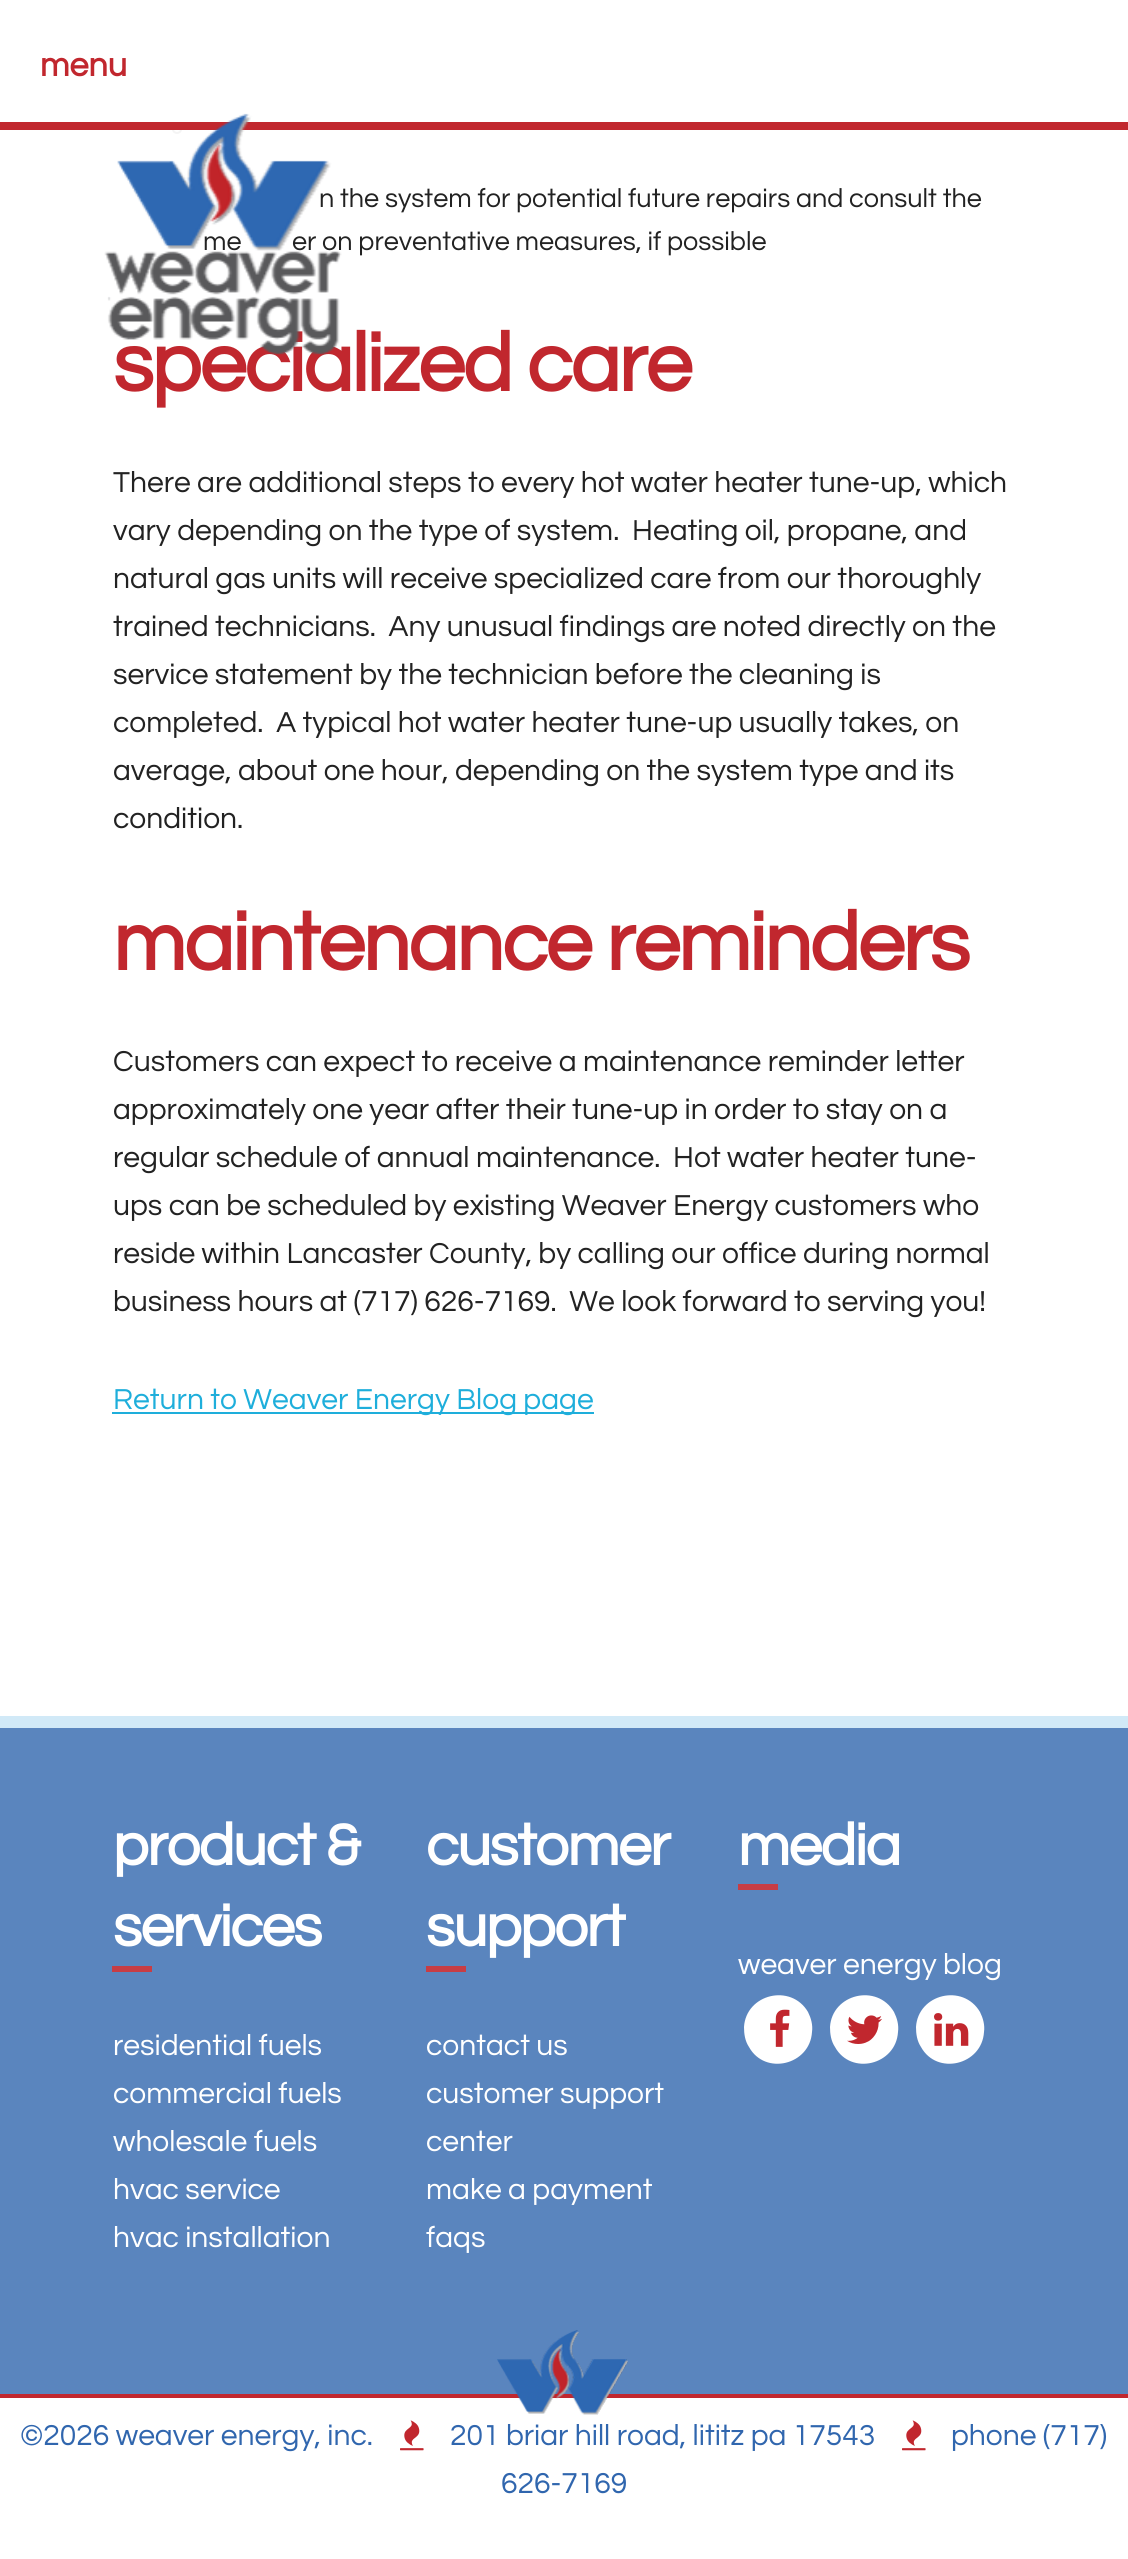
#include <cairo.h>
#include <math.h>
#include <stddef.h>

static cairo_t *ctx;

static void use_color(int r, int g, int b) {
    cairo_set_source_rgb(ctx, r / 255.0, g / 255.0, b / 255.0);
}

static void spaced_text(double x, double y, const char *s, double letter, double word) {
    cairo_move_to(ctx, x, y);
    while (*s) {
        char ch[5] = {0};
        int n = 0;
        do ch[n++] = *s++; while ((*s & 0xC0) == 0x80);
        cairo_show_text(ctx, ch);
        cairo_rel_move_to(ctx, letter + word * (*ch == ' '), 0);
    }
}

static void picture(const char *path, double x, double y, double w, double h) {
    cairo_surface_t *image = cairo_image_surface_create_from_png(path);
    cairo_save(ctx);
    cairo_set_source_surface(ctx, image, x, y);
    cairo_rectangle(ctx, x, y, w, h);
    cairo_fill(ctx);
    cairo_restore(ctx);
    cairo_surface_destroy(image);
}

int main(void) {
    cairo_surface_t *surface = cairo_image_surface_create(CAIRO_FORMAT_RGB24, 1128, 2559);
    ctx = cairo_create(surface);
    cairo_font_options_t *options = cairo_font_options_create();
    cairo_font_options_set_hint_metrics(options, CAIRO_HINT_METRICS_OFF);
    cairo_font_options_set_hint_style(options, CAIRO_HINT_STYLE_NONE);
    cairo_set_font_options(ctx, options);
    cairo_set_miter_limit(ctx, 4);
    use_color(255, 255, 255);
    cairo_paint(ctx);
    cairo_select_font_face(ctx, "Questrial", CAIRO_FONT_SLANT_NORMAL, CAIRO_FONT_WEIGHT_BOLD);
    cairo_set_font_size(ctx, 34);
    use_color(193, 39, 46);
    cairo_move_to(ctx, 40, 76);
    cairo_show_text(ctx, "menu");
    cairo_new_path(ctx);
    cairo_arc(ctx, 177, 129, 4, 0, 2 * M_PI);
    use_color(244, 244, 244);
    cairo_stroke(ctx);
    use_color(193, 39, 46);
    cairo_rectangle(ctx, 0, 122, 1128, 8);
    cairo_fill(ctx);
    cairo_select_font_face(ctx, "Questrial", CAIRO_FONT_SLANT_NORMAL, CAIRO_FONT_WEIGHT_NORMAL);
    cairo_set_font_size(ctx, 27);
    use_color(34, 34, 34);
    cairo_move_to(ctx, 319, 207);
    cairo_show_text(ctx, "n the system for potential future repairs and consult the");
    cairo_move_to(ctx, 203, 250);
    cairo_show_text(ctx, "me");
    cairo_move_to(ctx, 292, 250);
    cairo_show_text(ctx, "er on preventative measures, if possible");
    cairo_select_font_face(ctx, "Questrial", CAIRO_FONT_SLANT_NORMAL, CAIRO_FONT_WEIGHT_BOLD);
    cairo_set_font_size(ctx, 84);
    use_color(193, 39, 46);
    spaced_text(113, 391, "specialized care", -2, 0);
    picture("img1.png", 104, 113, 238, 242);
    cairo_select_font_face(ctx, "Questrial", CAIRO_FONT_SLANT_NORMAL, CAIRO_FONT_WEIGHT_NORMAL);
    cairo_set_font_size(ctx, 30);
    use_color(34, 34, 34);
    cairo_move_to(ctx, 113, 492);
    cairo_show_text(ctx, "There are additional steps to every hot water heater tune-up, which");
    cairo_move_to(ctx, 113, 540);
    cairo_show_text(ctx, "vary depending on the type of system.  Heating oil, propane, and");
    cairo_move_to(ctx, 113, 588);
    cairo_show_text(ctx, "natural gas units will receive specialized care from our thoroughly");
    cairo_move_to(ctx, 113, 636);
    cairo_show_text(ctx, "trained technicians.  Any unusual findings are noted directly on the");
    cairo_move_to(ctx, 113, 684);
    cairo_show_text(ctx, "service statement by the technician before the cleaning is");
    cairo_move_to(ctx, 113, 732);
    cairo_show_text(ctx, "completed.  A typical hot water heater tune-up usually takes, on");
    cairo_move_to(ctx, 113, 780);
    cairo_show_text(ctx, "average, about one hour, depending on the system type and its");
    cairo_move_to(ctx, 113, 828);
    cairo_show_text(ctx, "condition.");
    cairo_select_font_face(ctx, "Questrial", CAIRO_FONT_SLANT_NORMAL, CAIRO_FONT_WEIGHT_BOLD);
    cairo_set_font_size(ctx, 84);
    use_color(193, 39, 46);
    spaced_text(113, 970, "maintenance reminders", -2, 0);
    cairo_select_font_face(ctx, "Questrial", CAIRO_FONT_SLANT_NORMAL, CAIRO_FONT_WEIGHT_NORMAL);
    cairo_set_font_size(ctx, 30);
    use_color(34, 34, 34);
    cairo_move_to(ctx, 113, 1071);
    cairo_show_text(ctx, "Customers can expect to receive a maintenance reminder letter");
    cairo_move_to(ctx, 113, 1119);
    cairo_show_text(ctx, "approximately one year after their tune-up in order to stay on a");
    cairo_move_to(ctx, 113, 1167);
    cairo_show_text(ctx, "regular schedule of annual maintenance.  Hot water heater tune-");
    cairo_move_to(ctx, 113, 1215);
    cairo_show_text(ctx, "ups can be scheduled by existing Weaver Energy customers who");
    cairo_move_to(ctx, 113, 1263);
    cairo_show_text(ctx, "reside within Lancaster County, by calling our office during normal");
    cairo_move_to(ctx, 113, 1311);
    cairo_show_text(ctx, "business hours at (717) 626-7169.  We look forward to serving you!");
    use_color(30, 174, 219);
    cairo_rectangle(ctx, 112, 1412, 482, 2);
    cairo_fill(ctx);
    cairo_move_to(ctx, 113, 1409);
    cairo_show_text(ctx, "Return to Weaver Energy Blog page");
    use_color(90, 133, 190);
    cairo_rectangle(ctx, 0, 1728, 1128, 666);
    cairo_fill(ctx);
    use_color(209, 233, 247);
    cairo_rectangle(ctx, 0, 1716, 1128, 12);
    cairo_fill(ctx);
    cairo_select_font_face(ctx, "Questrial", CAIRO_FONT_SLANT_NORMAL, CAIRO_FONT_WEIGHT_BOLD);
    cairo_set_font_size(ctx, 60);
    use_color(255, 255, 255);
    spaced_text(113, 1865, "product &", -1.5, 0);
    spaced_text(113, 1946, "services", -1.5, 0);
    use_color(199, 61, 69);
    cairo_rectangle(ctx, 112, 1966, 40, 6);
    cairo_fill(ctx);
    cairo_select_font_face(ctx, "Questrial", CAIRO_FONT_SLANT_NORMAL, CAIRO_FONT_WEIGHT_NORMAL);
    cairo_set_font_size(ctx, 30);
    use_color(255, 255, 255);
    cairo_move_to(ctx, 113, 2055);
    cairo_show_text(ctx, "residential fuels");
    cairo_move_to(ctx, 113, 2103);
    cairo_show_text(ctx, "commercial fuels");
    cairo_move_to(ctx, 113, 2151);
    cairo_show_text(ctx, "wholesale fuels");
    cairo_move_to(ctx, 113, 2199);
    cairo_show_text(ctx, "hvac service");
    cairo_move_to(ctx, 113, 2247);
    cairo_show_text(ctx, "hvac installation");
    cairo_select_font_face(ctx, "Questrial", CAIRO_FONT_SLANT_NORMAL, CAIRO_FONT_WEIGHT_BOLD);
    cairo_set_font_size(ctx, 60);
    spaced_text(426, 1865, "customer", -1.5, 0);
    spaced_text(426, 1946, "support", -1.5, 0);
    use_color(199, 61, 69);
    cairo_rectangle(ctx, 426, 1966, 40, 6);
    cairo_fill(ctx);
    cairo_select_font_face(ctx, "Questrial", CAIRO_FONT_SLANT_NORMAL, CAIRO_FONT_WEIGHT_NORMAL);
    cairo_set_font_size(ctx, 30);
    use_color(255, 255, 255);
    cairo_move_to(ctx, 426, 2055);
    cairo_show_text(ctx, "contact us");
    cairo_move_to(ctx, 426, 2103);
    cairo_show_text(ctx, "customer support");
    cairo_move_to(ctx, 426, 2151);
    cairo_show_text(ctx, "center");
    cairo_move_to(ctx, 426, 2199);
    cairo_show_text(ctx, "make a payment");
    cairo_move_to(ctx, 426, 2247);
    cairo_show_text(ctx, "faqs");
    cairo_select_font_face(ctx, "Questrial", CAIRO_FONT_SLANT_NORMAL, CAIRO_FONT_WEIGHT_BOLD);
    cairo_set_font_size(ctx, 60);
    spaced_text(738, 1865, "media", -1.5, 0);
    use_color(199, 61, 69);
    cairo_rectangle(ctx, 738, 1884, 40, 6);
    cairo_fill(ctx);
    cairo_select_font_face(ctx, "Questrial", CAIRO_FONT_SLANT_NORMAL, CAIRO_FONT_WEIGHT_NORMAL);
    cairo_set_font_size(ctx, 30);
    use_color(255, 255, 255);
    cairo_move_to(ctx, 738, 1974);
    cairo_show_text(ctx, "weaver energy blog");
    cairo_new_path(ctx);
    cairo_move_to(ctx, 808, 2012);
    cairo_curve_to(ctx, 811, 2018, 813, 2025, 812, 2032);
    cairo_curve_to(ctx, 810, 2065, 765, 2076, 749, 2047);
    cairo_curve_to(ctx, 745, 2041, 744, 2034, 744, 2027);
    cairo_curve_to(ctx, 746, 1994, 791, 1983, 808, 2012);
    cairo_close_path(ctx);
    cairo_fill(ctx);
    picture("img2.png", 770, 2009, 20, 38);
    cairo_new_path(ctx);
    cairo_move_to(ctx, 894, 2012);
    cairo_curve_to(ctx, 897, 2018, 899, 2025, 898, 2032);
    cairo_curve_to(ctx, 896, 2065, 851, 2076, 835, 2047);
    cairo_curve_to(ctx, 831, 2041, 830, 2034, 830, 2027);
    cairo_curve_to(ctx, 832, 1994, 877, 1983, 894, 2012);
    cairo_close_path(ctx);
    cairo_fill(ctx);
    picture("img3.png", 847, 2015, 35, 29);
    cairo_new_path(ctx);
    cairo_move_to(ctx, 980, 2012);
    cairo_curve_to(ctx, 983, 2018, 985, 2025, 984, 2032);
    cairo_curve_to(ctx, 982, 2065, 937, 2076, 921, 2047);
    cairo_curve_to(ctx, 917, 2041, 916, 2034, 916, 2027);
    cairo_curve_to(ctx, 918, 1994, 963, 1983, 980, 2012);
    cairo_close_path(ctx);
    cairo_fill(ctx);
    picture("img4.png", 934, 2013, 35, 33);
    use_color(193, 39, 46);
    cairo_rectangle(ctx, 0, 2394, 1128, 4);
    cairo_fill(ctx);
    picture("img5.png", 497, 2330, 131, 85);
    use_color(48, 102, 174);
    cairo_move_to(ctx, 20, 2445);
    cairo_show_text(ctx, "©2026 weaver energy, inc.");
    picture("img6.png", 400, 2420, 24, 31);
    cairo_move_to(ctx, 450, 2445);
    cairo_show_text(ctx, "201 briar hill road, lititz pa 17543");
    picture("img6.png", 902, 2420, 24, 31);
    cairo_move_to(ctx, 951, 2445);
    cairo_show_text(ctx, "phone (717)");
    cairo_move_to(ctx, 501, 2493);
    cairo_show_text(ctx, "626-7169");
    cairo_surface_write_to_png(surface, "result.png");
    cairo_font_options_destroy(options);
    cairo_destroy(ctx);
    cairo_surface_destroy(surface);
    return 0;
}
